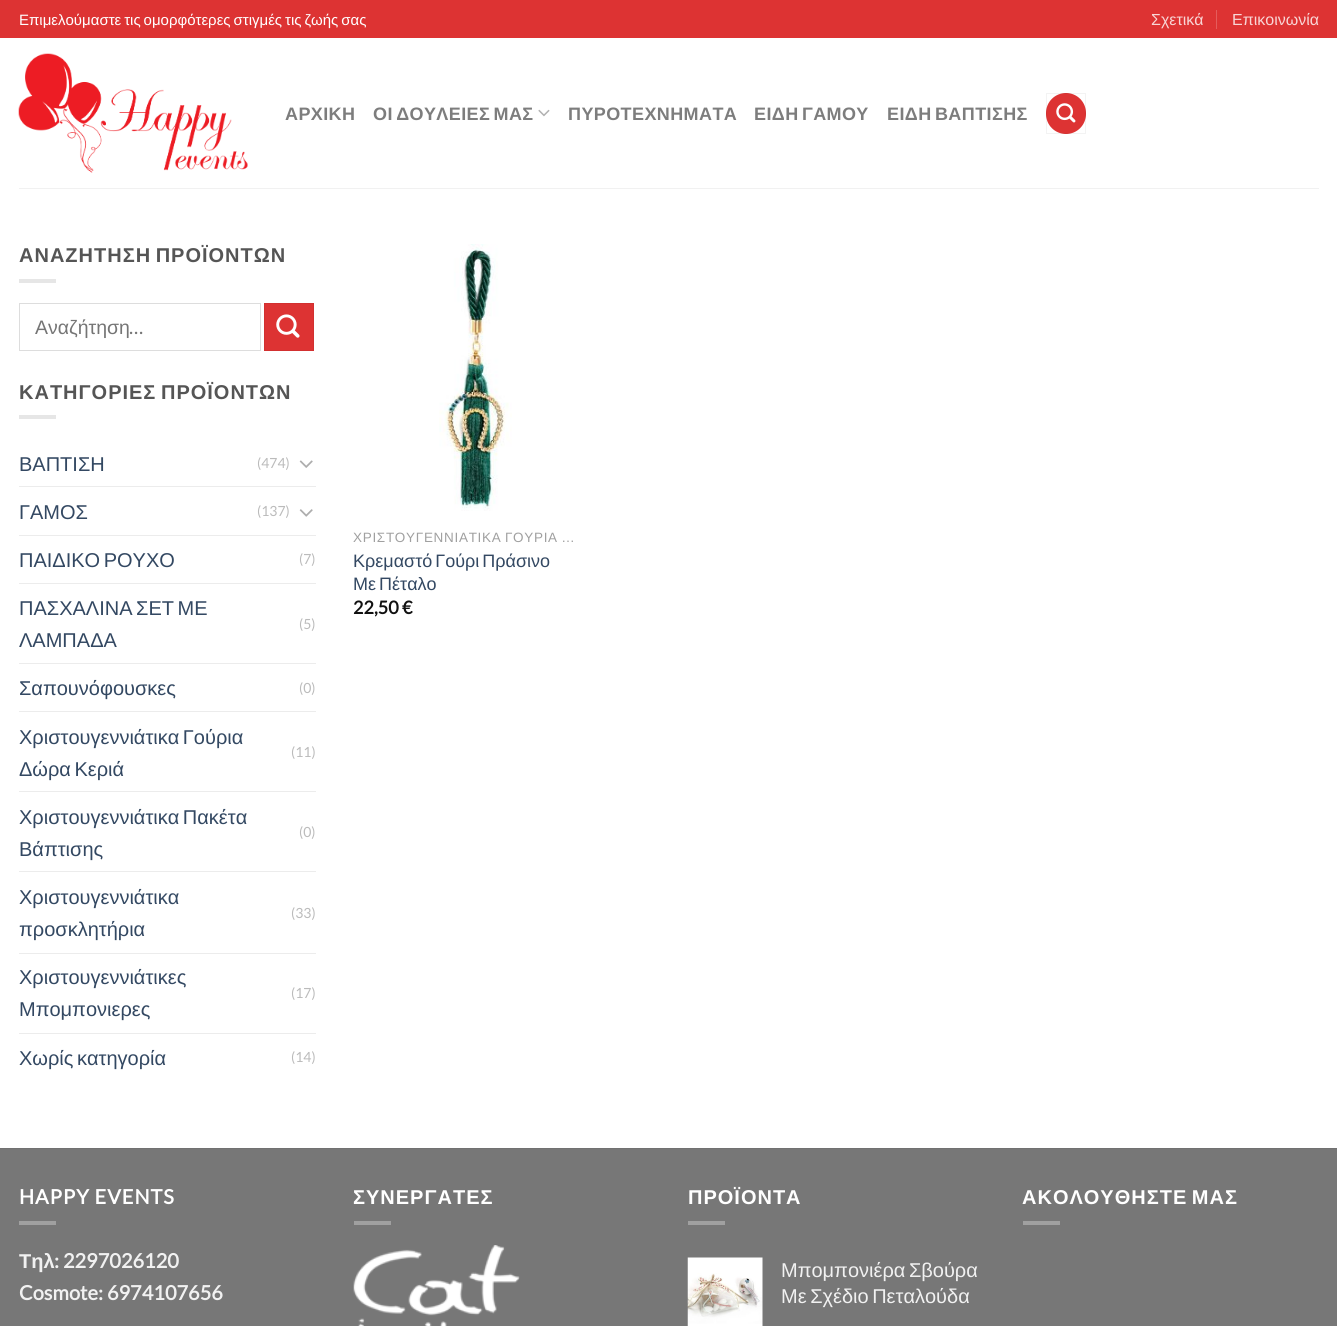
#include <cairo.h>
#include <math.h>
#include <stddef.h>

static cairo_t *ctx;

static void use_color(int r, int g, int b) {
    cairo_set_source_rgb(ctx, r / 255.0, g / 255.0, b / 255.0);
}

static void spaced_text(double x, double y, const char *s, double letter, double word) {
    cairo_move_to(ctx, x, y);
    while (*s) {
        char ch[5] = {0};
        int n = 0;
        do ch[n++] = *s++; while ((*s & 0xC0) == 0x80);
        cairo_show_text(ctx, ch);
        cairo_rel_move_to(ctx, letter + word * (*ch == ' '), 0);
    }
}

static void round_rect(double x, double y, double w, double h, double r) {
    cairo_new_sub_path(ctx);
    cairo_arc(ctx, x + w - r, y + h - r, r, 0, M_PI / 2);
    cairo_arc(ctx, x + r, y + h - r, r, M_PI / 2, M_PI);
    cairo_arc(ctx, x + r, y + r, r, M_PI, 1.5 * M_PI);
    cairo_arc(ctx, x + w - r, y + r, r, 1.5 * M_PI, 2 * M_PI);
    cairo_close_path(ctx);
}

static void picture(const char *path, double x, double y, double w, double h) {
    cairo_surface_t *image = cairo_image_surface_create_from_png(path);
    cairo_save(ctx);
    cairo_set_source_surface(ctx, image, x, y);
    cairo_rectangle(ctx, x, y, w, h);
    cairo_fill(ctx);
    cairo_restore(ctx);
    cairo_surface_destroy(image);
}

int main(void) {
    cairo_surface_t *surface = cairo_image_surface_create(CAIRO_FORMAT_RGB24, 1337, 1326);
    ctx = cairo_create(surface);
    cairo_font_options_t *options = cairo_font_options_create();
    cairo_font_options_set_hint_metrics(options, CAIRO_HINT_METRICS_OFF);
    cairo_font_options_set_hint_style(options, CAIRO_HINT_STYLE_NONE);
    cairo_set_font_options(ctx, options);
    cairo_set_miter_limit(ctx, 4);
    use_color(255, 255, 255);
    cairo_paint(ctx);
    use_color(221, 51, 51);
    cairo_rectangle(ctx, 0, 0, 1337, 38);
    cairo_fill(ctx);
    cairo_select_font_face(ctx, "Liberation Sans", CAIRO_FONT_SLANT_NORMAL, CAIRO_FONT_WEIGHT_NORMAL);
    cairo_set_font_size(ctx, 15);
    use_color(255, 255, 255);
    spaced_text(19, 25, "Επιμελούμαστε τις ομορφότερες στιγμές τις ζωής σας", 0, -1.25);
    cairo_set_font_size(ctx, 16);
    use_color(248, 214, 214);
    cairo_move_to(ctx, 1151, 25);
    cairo_show_text(ctx, "Σχετικά");
    use_color(228, 92, 92);
    cairo_rectangle(ctx, 1216, 10, 1, 19);
    cairo_fill(ctx);
    use_color(248, 214, 214);
    cairo_move_to(ctx, 1232, 25);
    cairo_show_text(ctx, "Επικοινωνία");
    picture("img1.png", 18, 53, 230, 120);
    cairo_select_font_face(ctx, "Liberation Sans", CAIRO_FONT_SLANT_NORMAL, CAIRO_FONT_WEIGHT_BOLD);
    cairo_set_font_size(ctx, 18);
    use_color(125, 125, 125);
    spaced_text(285, 120, "ΑΡΧΙΚΗ", 0.4, 0);
    spaced_text(373, 120, "ΟΙ ΔΟΥΛΕΙΕΣ ΜΑΣ", 0.4, -2);
    picture("img2.png", 538, 109, 12, 8);
    spaced_text(568, 120, "ΠΥΡΟΤΕΧΝΗΜΑΤΑ", 0.4, 0);
    spaced_text(754, 120, "ΕΙΔΗ ΓΑΜΟΥ", 0.4, -2);
    spaced_text(887, 120, "ΕΙΔΗ ΒΑΠΤΙΣΗΣ", 0.4, -2);
    use_color(221, 51, 51);
    round_rect(1046, 93, 40, 41, 20);
    cairo_fill(ctx);
    cairo_rectangle(ctx, 1046.5, 93.5, 39, 40);
    cairo_set_source_rgba(ctx, 0, 0, 0, 0.05);
    cairo_set_line_width(ctx, 1);
    cairo_stroke(ctx);
    picture("img3.png", 1056, 103, 20, 20);
    use_color(241, 241, 241);
    cairo_rectangle(ctx, 19, 188, 1300, 1);
    cairo_fill(ctx);
    cairo_set_font_size(ctx, 20);
    use_color(85, 85, 85);
    spaced_text(19, 262, "ΑΝΑΖΗΤΗΣΗ ΠΡΟΪΟΝΤΩΝ", 1, -2);
    use_color(230, 230, 230);
    cairo_rectangle(ctx, 19, 279, 37, 4);
    cairo_fill(ctx);
    cairo_rectangle(ctx, 19.5, 303.5, 241, 47);
    use_color(221, 221, 221);
    cairo_stroke(ctx);
    cairo_select_font_face(ctx, "Liberation Sans", CAIRO_FONT_SLANT_NORMAL, CAIRO_FONT_WEIGHT_NORMAL);
    cairo_set_font_size(ctx, 19.5);
    use_color(117, 117, 117);
    cairo_move_to(ctx, 35, 334);
    cairo_show_text(ctx, "Αναζήτηση");
    cairo_select_font_face(ctx, "Lato", CAIRO_FONT_SLANT_NORMAL, CAIRO_FONT_WEIGHT_NORMAL);
    cairo_move_to(ctx, 129, 334);
    cairo_show_text(ctx, "…");
    use_color(221, 51, 51);
    cairo_rectangle(ctx, 264.5, 303.5, 49, 47);
    cairo_fill_preserve(ctx);
    use_color(210, 48, 48);
    cairo_stroke(ctx);
    picture("img4.png", 276, 314, 24, 24);
    cairo_select_font_face(ctx, "Liberation Sans", CAIRO_FONT_SLANT_NORMAL, CAIRO_FONT_WEIGHT_BOLD);
    cairo_set_font_size(ctx, 20);
    use_color(85, 85, 85);
    spaced_text(19, 399, "ΚΑΤΗΓΟΡΙΕΣ ΠΡΟΪΟΝΤΩΝ", 1, -2);
    use_color(230, 230, 230);
    cairo_rectangle(ctx, 19, 415, 37, 4);
    cairo_fill(ctx);
    cairo_select_font_face(ctx, "Liberation Sans", CAIRO_FONT_SLANT_NORMAL, CAIRO_FONT_WEIGHT_NORMAL);
    use_color(51, 72, 98);
    cairo_move_to(ctx, 19, 471);
    cairo_show_text(ctx, "ΒΑΠΤΙΣΗ");
    cairo_select_font_face(ctx, "Lato", CAIRO_FONT_SLANT_NORMAL, CAIRO_FONT_WEIGHT_NORMAL);
    cairo_set_font_size(ctx, 14);
    use_color(187, 187, 187);
    cairo_move_to(ctx, 257, 468);
    cairo_show_text(ctx, "(474)");
    picture("img5.png", 299, 460, 14, 8);
    use_color(236, 236, 236);
    cairo_rectangle(ctx, 19, 486, 297, 1);
    cairo_fill(ctx);
    cairo_select_font_face(ctx, "Liberation Sans", CAIRO_FONT_SLANT_NORMAL, CAIRO_FONT_WEIGHT_NORMAL);
    cairo_set_font_size(ctx, 20);
    use_color(51, 72, 98);
    cairo_move_to(ctx, 19, 519);
    cairo_show_text(ctx, "ΓΑΜΟΣ");
    cairo_select_font_face(ctx, "Lato", CAIRO_FONT_SLANT_NORMAL, CAIRO_FONT_WEIGHT_NORMAL);
    cairo_set_font_size(ctx, 14);
    use_color(187, 187, 187);
    cairo_move_to(ctx, 257, 516);
    cairo_show_text(ctx, "(137)");
    picture("img6.png", 299, 509, 14, 8);
    use_color(236, 236, 236);
    cairo_rectangle(ctx, 19, 535, 297, 1);
    cairo_fill(ctx);
    cairo_select_font_face(ctx, "Liberation Sans", CAIRO_FONT_SLANT_NORMAL, CAIRO_FONT_WEIGHT_NORMAL);
    cairo_set_font_size(ctx, 20);
    use_color(51, 72, 98);
    spaced_text(19, 567, "ΠΑΙΔΙΚΟ ΡΟΥΧΟ", 0, -2);
    cairo_select_font_face(ctx, "Lato", CAIRO_FONT_SLANT_NORMAL, CAIRO_FONT_WEIGHT_NORMAL);
    cairo_set_font_size(ctx, 14);
    use_color(187, 187, 187);
    cairo_move_to(ctx, 299, 564);
    cairo_show_text(ctx, "(7)");
    use_color(236, 236, 236);
    cairo_rectangle(ctx, 19, 583, 297, 1);
    cairo_fill(ctx);
    cairo_select_font_face(ctx, "Liberation Sans", CAIRO_FONT_SLANT_NORMAL, CAIRO_FONT_WEIGHT_NORMAL);
    cairo_set_font_size(ctx, 20);
    use_color(51, 72, 98);
    spaced_text(19, 615, "ΠΑΣΧΑΛΙΝΑ ΣΕΤ ΜΕ", 0, -2);
    cairo_move_to(ctx, 19, 647);
    cairo_show_text(ctx, "ΛΑΜΠΑΔΑ");
    cairo_select_font_face(ctx, "Lato", CAIRO_FONT_SLANT_NORMAL, CAIRO_FONT_WEIGHT_NORMAL);
    cairo_set_font_size(ctx, 14);
    use_color(187, 187, 187);
    cairo_move_to(ctx, 299, 629);
    cairo_show_text(ctx, "(5)");
    use_color(236, 236, 236);
    cairo_rectangle(ctx, 19, 663, 297, 1);
    cairo_fill(ctx);
    cairo_select_font_face(ctx, "Liberation Sans", CAIRO_FONT_SLANT_NORMAL, CAIRO_FONT_WEIGHT_NORMAL);
    cairo_set_font_size(ctx, 20);
    use_color(51, 72, 98);
    cairo_move_to(ctx, 19, 695);
    cairo_show_text(ctx, "Σαπουνόφουσκες");
    cairo_select_font_face(ctx, "Lato", CAIRO_FONT_SLANT_NORMAL, CAIRO_FONT_WEIGHT_NORMAL);
    cairo_set_font_size(ctx, 14);
    use_color(187, 187, 187);
    cairo_move_to(ctx, 299, 693);
    cairo_show_text(ctx, "(0)");
    use_color(236, 236, 236);
    cairo_rectangle(ctx, 19, 711, 297, 1);
    cairo_fill(ctx);
    cairo_select_font_face(ctx, "Liberation Sans", CAIRO_FONT_SLANT_NORMAL, CAIRO_FONT_WEIGHT_NORMAL);
    cairo_set_font_size(ctx, 20);
    use_color(51, 72, 98);
    spaced_text(19, 744, "Χριστουγεννιάτικα Γούρια", 0, -2);
    spaced_text(19, 776, "Δώρα Κεριά", 0, -2);
    cairo_select_font_face(ctx, "Lato", CAIRO_FONT_SLANT_NORMAL, CAIRO_FONT_WEIGHT_NORMAL);
    cairo_set_font_size(ctx, 14);
    use_color(187, 187, 187);
    cairo_move_to(ctx, 291, 757);
    cairo_show_text(ctx, "(11)");
    use_color(236, 236, 236);
    cairo_rectangle(ctx, 19, 791, 297, 1);
    cairo_fill(ctx);
    cairo_select_font_face(ctx, "Liberation Sans", CAIRO_FONT_SLANT_NORMAL, CAIRO_FONT_WEIGHT_NORMAL);
    cairo_set_font_size(ctx, 20);
    use_color(51, 72, 98);
    spaced_text(19, 824, "Χριστουγεννιάτικα Πακέτα", 0, -2);
    cairo_move_to(ctx, 19, 856);
    cairo_show_text(ctx, "Βάπτισης");
    cairo_select_font_face(ctx, "Lato", CAIRO_FONT_SLANT_NORMAL, CAIRO_FONT_WEIGHT_NORMAL);
    cairo_set_font_size(ctx, 14);
    use_color(187, 187, 187);
    cairo_move_to(ctx, 299, 837);
    cairo_show_text(ctx, "(0)");
    use_color(236, 236, 236);
    cairo_rectangle(ctx, 19, 871, 297, 1);
    cairo_fill(ctx);
    cairo_select_font_face(ctx, "Liberation Sans", CAIRO_FONT_SLANT_NORMAL, CAIRO_FONT_WEIGHT_NORMAL);
    cairo_set_font_size(ctx, 20);
    use_color(51, 72, 98);
    cairo_move_to(ctx, 19, 904);
    cairo_show_text(ctx, "Χριστουγεννιάτικα");
    cairo_move_to(ctx, 19, 936);
    cairo_show_text(ctx, "προσκλητήρια");
    cairo_select_font_face(ctx, "Lato", CAIRO_FONT_SLANT_NORMAL, CAIRO_FONT_WEIGHT_NORMAL);
    cairo_set_font_size(ctx, 14);
    use_color(187, 187, 187);
    cairo_move_to(ctx, 291, 918);
    cairo_show_text(ctx, "(33)");
    use_color(236, 236, 236);
    cairo_rectangle(ctx, 19, 953, 297, 1);
    cairo_fill(ctx);
    cairo_select_font_face(ctx, "Liberation Sans", CAIRO_FONT_SLANT_NORMAL, CAIRO_FONT_WEIGHT_NORMAL);
    cairo_set_font_size(ctx, 20);
    use_color(51, 72, 98);
    cairo_move_to(ctx, 19, 984);
    cairo_show_text(ctx, "Χριστουγεννιάτικες");
    cairo_move_to(ctx, 19, 1016);
    cairo_show_text(ctx, "Μπομπονιερες");
    cairo_select_font_face(ctx, "Lato", CAIRO_FONT_SLANT_NORMAL, CAIRO_FONT_WEIGHT_NORMAL);
    cairo_set_font_size(ctx, 14);
    use_color(187, 187, 187);
    cairo_move_to(ctx, 291, 998);
    cairo_show_text(ctx, "(17)");
    use_color(236, 236, 236);
    cairo_rectangle(ctx, 19, 1033, 297, 1);
    cairo_fill(ctx);
    cairo_select_font_face(ctx, "Liberation Sans", CAIRO_FONT_SLANT_NORMAL, CAIRO_FONT_WEIGHT_NORMAL);
    cairo_set_font_size(ctx, 20);
    use_color(51, 72, 98);
    spaced_text(19, 1065, "Χωρίς κατηγορία", 0, -2);
    cairo_select_font_face(ctx, "Lato", CAIRO_FONT_SLANT_NORMAL, CAIRO_FONT_WEIGHT_NORMAL);
    cairo_set_font_size(ctx, 14);
    use_color(187, 187, 187);
    cairo_move_to(ctx, 291, 1062);
    cairo_show_text(ctx, "(14)");
    picture("img7.png", 439, 244, 73, 267);
    cairo_select_font_face(ctx, "Liberation Sans", CAIRO_FONT_SLANT_NORMAL, CAIRO_FONT_WEIGHT_NORMAL);
    cairo_set_font_size(ctx, 13.5);
    use_color(160, 160, 160);
    spaced_text(353, 542, "ΧΡΙΣΤΟΥΓΕΝΝΙΑΤΙΚΑ ΓΟΥΡΙΑ …", 0.7, -1);
    cairo_set_font_size(ctx, 18);
    use_color(51, 72, 98);
    spaced_text(353, 567, "Κρεμαστό Γούρι Πράσινο", 0, -2);
    spaced_text(353, 590, "Με Πέταλο", 0, -2);
    cairo_select_font_face(ctx, "Lato", CAIRO_FONT_SLANT_NORMAL, CAIRO_FONT_WEIGHT_BOLD);
    use_color(17, 17, 17);
    cairo_move_to(ctx, 353, 614);
    cairo_show_text(ctx, "22,50 €");
    use_color(119, 119, 119);
    cairo_rectangle(ctx, 0, 1149, 1337, 177);
    cairo_fill(ctx);
    use_color(113, 113, 113);
    cairo_rectangle(ctx, 0, 1148, 1337, 1);
    cairo_fill(ctx);
    cairo_set_font_size(ctx, 20);
    use_color(255, 255, 255);
    spaced_text(19, 1204, "HAPPY EVENTS", 1, 0);
    use_color(160, 160, 160);
    cairo_rectangle(ctx, 19, 1221, 37, 4);
    cairo_fill(ctx);
    cairo_select_font_face(ctx, "Liberation Sans", CAIRO_FONT_SLANT_NORMAL, CAIRO_FONT_WEIGHT_BOLD);
    use_color(241, 241, 241);
    cairo_move_to(ctx, 19, 1268);
    cairo_show_text(ctx, "Τηλ");
    cairo_select_font_face(ctx, "Lato", CAIRO_FONT_SLANT_NORMAL, CAIRO_FONT_WEIGHT_BOLD);
    cairo_move_to(ctx, 54, 1268);
    cairo_show_text(ctx, ": 2297026120");
    cairo_move_to(ctx, 19, 1300);
    cairo_show_text(ctx, "Cosmote: 6974107656");
    cairo_select_font_face(ctx, "Liberation Sans", CAIRO_FONT_SLANT_NORMAL, CAIRO_FONT_WEIGHT_BOLD);
    use_color(255, 255, 255);
    spaced_text(353, 1204, "ΣΥΝΕΡΓΑΤΕΣ", 1, 0);
    use_color(160, 160, 160);
    cairo_rectangle(ctx, 354, 1221, 37, 4);
    cairo_fill(ctx);
    picture("img8.png", 353, 1245, 167, 81);
    use_color(255, 255, 255);
    spaced_text(688, 1204, "ΠΡΟΪΟΝΤΑ", 1, 0);
    use_color(160, 160, 160);
    cairo_rectangle(ctx, 688, 1221, 37, 4);
    cairo_fill(ctx);
    picture("img9.png", 687, 1257, 76, 69);
    cairo_select_font_face(ctx, "Liberation Sans", CAIRO_FONT_SLANT_NORMAL, CAIRO_FONT_WEIGHT_NORMAL);
    use_color(241, 241, 241);
    spaced_text(781, 1277, "Μπομπονιέρα Σβούρα", 0, -2);
    spaced_text(781, 1303, "Με Σχέδιο Πεταλούδα", 0, -2);
    cairo_select_font_face(ctx, "Liberation Sans", CAIRO_FONT_SLANT_NORMAL, CAIRO_FONT_WEIGHT_BOLD);
    use_color(255, 255, 255);
    spaced_text(1022, 1204, "ΑΚΟΛΟΥΘΗΣΤΕ ΜΑΣ", 1, -2);
    use_color(160, 160, 160);
    cairo_rectangle(ctx, 1023, 1221, 37, 4);
    cairo_fill(ctx);
    cairo_surface_write_to_png(surface, "result.png");
    cairo_font_options_destroy(options);
    cairo_destroy(ctx);
    cairo_surface_destroy(surface);
    return 0;
}
